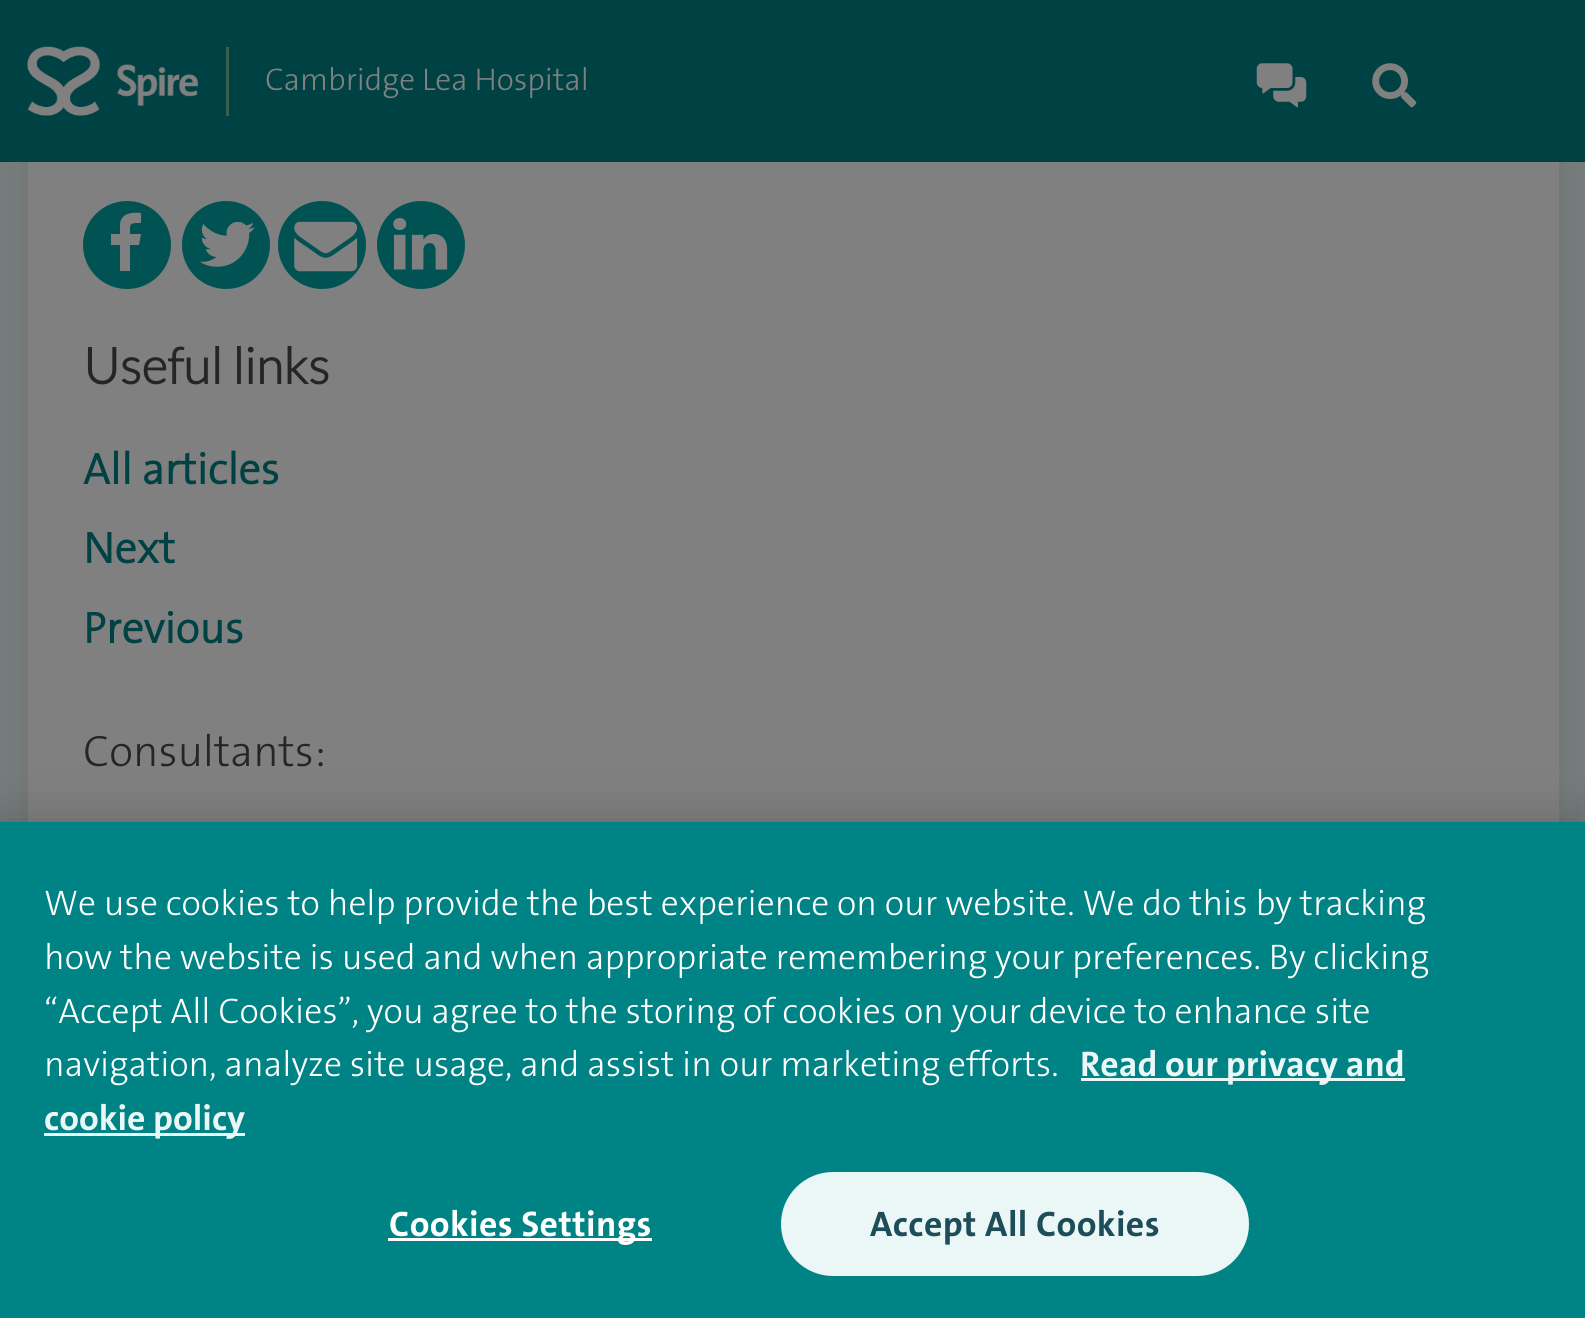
#include <cairo.h>
#include <math.h>
#include <stddef.h>

static cairo_t *ctx;

static void use_color(int r, int g, int b) {
    cairo_set_source_rgb(ctx, r / 255.0, g / 255.0, b / 255.0);
}

static void spaced_text(double x, double y, const char *s, double letter, double word) {
    cairo_move_to(ctx, x, y);
    while (*s) {
        char ch[5] = {0};
        int n = 0;
        do ch[n++] = *s++; while ((*s & 0xC0) == 0x80);
        cairo_show_text(ctx, ch);
        cairo_rel_move_to(ctx, letter + word * (*ch == ' '), 0);
    }
}

static void round_rect(double x, double y, double w, double h, double r) {
    cairo_new_sub_path(ctx);
    cairo_arc(ctx, x + w - r, y + h - r, r, 0, M_PI / 2);
    cairo_arc(ctx, x + r, y + h - r, r, M_PI / 2, M_PI);
    cairo_arc(ctx, x + r, y + r, r, M_PI, 1.5 * M_PI);
    cairo_arc(ctx, x + w - r, y + r, r, 1.5 * M_PI, 2 * M_PI);
    cairo_close_path(ctx);
}

static void shadow(double x, double y, double w, double h, double r, double blur, double alpha) {
    cairo_push_group_with_content(ctx, CAIRO_CONTENT_ALPHA);
    cairo_set_operator(ctx, CAIRO_OPERATOR_SOURCE);
    for (int i = 15; i >= -15 && fmin(w, h) + blur * i / 3 > 0; i -= 2) {
        double e = blur * i / 6;
        cairo_set_source_rgba(ctx, 0, 0, 0, alpha * erfc((i - 1) / 8.5) / 2);
        round_rect(x - e, y - e, w + 2 * e, h + 2 * e, fmax(0, fmin(r + e + blur * .6, fmin(w, h) / 2 + e)));
        cairo_fill(ctx);
    }
    cairo_pattern_t *soft = cairo_pop_group(ctx);
    cairo_mask(ctx, soft);
    cairo_pattern_destroy(soft);
}

static void picture(const char *path, double x, double y, double w, double h) {
    cairo_surface_t *image = cairo_image_surface_create_from_png(path);
    cairo_save(ctx);
    cairo_set_source_surface(ctx, image, x, y);
    cairo_rectangle(ctx, x, y, w, h);
    cairo_fill(ctx);
    cairo_restore(ctx);
    cairo_surface_destroy(image);
}

int main(void) {
    cairo_surface_t *surface = cairo_image_surface_create(CAIRO_FORMAT_RGB24, 1585, 1318);
    ctx = cairo_create(surface);
    cairo_font_options_t *options = cairo_font_options_create();
    cairo_font_options_set_hint_metrics(options, CAIRO_HINT_METRICS_OFF);
    cairo_font_options_set_hint_style(options, CAIRO_HINT_STYLE_NONE);
    cairo_set_font_options(ctx, options);
    cairo_set_miter_limit(ctx, 4);
    use_color(120, 125, 125);
    cairo_paint(ctx);
    use_color(0, 0, 0);
    shadow(28, -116, 1531, 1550, 0, 38.5, 0.08);
    use_color(0, 66, 67);
    cairo_rectangle(ctx, 0, 0, 1585, 162);
    cairo_fill(ctx);
    picture("img1.png", 27, 46, 171, 70);
    use_color(58, 95, 80);
    cairo_rectangle(ctx, 226, 47, 3, 69);
    cairo_fill(ctx);
    cairo_select_font_face(ctx, "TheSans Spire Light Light", CAIRO_FONT_SLANT_NORMAL, CAIRO_FONT_WEIGHT_NORMAL);
    cairo_set_font_size(ctx, 31.5);
    use_color(128, 128, 128);
    cairo_move_to(ctx, 265, 90);
    cairo_show_text(ctx, "Cambridge Lea Hospital");
    picture("img2.png", 1256, 63, 51, 45);
    picture("img3.png", 1372, 63, 45, 45);
    cairo_rectangle(ctx, 28, 162, 1531, 660);
    cairo_fill(ctx);
    use_color(0, 82, 83);
    cairo_arc(ctx, 127, 245, 44, 0, 2 * M_PI);
    cairo_fill(ctx);
    use_color(128, 128, 128);
    cairo_new_path(ctx);
    cairo_move_to(ctx, 141, 213);
    cairo_line_to(ctx, 141, 223);
    cairo_curve_to(ctx, 129, 223, 130, 223, 130, 234);
    cairo_line_to(ctx, 141, 234);
    cairo_line_to(ctx, 139, 245);
    cairo_line_to(ctx, 130, 245);
    cairo_line_to(ctx, 130, 271);
    cairo_line_to(ctx, 120, 271);
    cairo_line_to(ctx, 120, 245);
    cairo_line_to(ctx, 111, 245);
    cairo_line_to(ctx, 111, 234);
    cairo_line_to(ctx, 120, 234);
    cairo_line_to(ctx, 120, 224);
    cairo_curve_to(ctx, 121, 213, 132, 212, 141, 213);
    cairo_close_path(ctx);
    cairo_fill(ctx);
    use_color(0, 82, 83);
    cairo_arc(ctx, 226, 245, 44, 0, 2 * M_PI);
    cairo_fill(ctx);
    picture("img4.png", 199, 221, 56, 46);
    cairo_arc(ctx, 322, 245, 44, 0, 2 * M_PI);
    cairo_fill(ctx);
    picture("img5.png", 294, 221, 64, 51);
    cairo_arc(ctx, 421, 245, 44, 0, 2 * M_PI);
    cairo_fill(ctx);
    picture("img6.png", 393, 218, 55, 52);
    cairo_select_font_face(ctx, "Lato", CAIRO_FONT_SLANT_NORMAL, CAIRO_FONT_WEIGHT_BOLD);
    cairo_set_font_size(ctx, 50.25);
    use_color(37, 37, 37);
    cairo_move_to(ctx, 83, 384);
    cairo_show_text(ctx, "Useful links");
    cairo_select_font_face(ctx, "TheSans Spire Light", CAIRO_FONT_SLANT_NORMAL, CAIRO_FONT_WEIGHT_BOLD);
    cairo_set_font_size(ctx, 44);
    use_color(0, 66, 67);
    cairo_move_to(ctx, 83, 484);
    cairo_show_text(ctx, "All articles");
    cairo_move_to(ctx, 83, 563);
    cairo_show_text(ctx, "Next");
    cairo_move_to(ctx, 83, 643);
    cairo_show_text(ctx, "Previous");
    cairo_select_font_face(ctx, "TheSans Spire Light Light", CAIRO_FONT_SLANT_NORMAL, CAIRO_FONT_WEIGHT_NORMAL);
    use_color(37, 37, 37);
    cairo_move_to(ctx, 83, 766);
    cairo_show_text(ctx, "Consultants:");
    use_color(0, 0, 0);
    shadow(0, 822, 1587, 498, 0, 25, 0.2);
    use_color(0, 131, 133);
    cairo_rectangle(ctx, 0, 822, 1585, 496);
    cairo_fill(ctx);
    cairo_set_font_size(ctx, 35.75);
    use_color(255, 255, 255);
    cairo_move_to(ctx, 44, 915);
    cairo_show_text(ctx, "We use cookies to help provide the best experience on our website. We do this by tracking");
    cairo_move_to(ctx, 44, 969);
    cairo_show_text(ctx, "how the website is used and when appropriate remembering your preferences. By clicking");
    cairo_move_to(ctx, 44, 1023);
    cairo_show_text(ctx, "“Accept All Cookies”, you agree to the storing of cookies on your device to enhance site");
    cairo_move_to(ctx, 44, 1076);
    cairo_show_text(ctx, "navigation, analyze site usage, and assist in our marketing efforts.");
    use_color(235, 247, 247);
    cairo_rectangle(ctx, 1081, 1078, 324, 3);
    cairo_fill(ctx);
    cairo_select_font_face(ctx, "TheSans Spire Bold", CAIRO_FONT_SLANT_NORMAL, CAIRO_FONT_WEIGHT_BOLD);
    cairo_move_to(ctx, 1080, 1076);
    cairo_show_text(ctx, "Read our privacy and");
    cairo_rectangle(ctx, 44, 1133, 201, 3);
    cairo_fill(ctx);
    cairo_move_to(ctx, 44, 1130);
    cairo_show_text(ctx, "cookie policy");
    use_color(255, 255, 255);
    cairo_rectangle(ctx, 388, 1238, 264, 3);
    cairo_fill(ctx);
    spaced_text(389, 1236, "Cookies Settings", 0.4, 0);
    use_color(235, 247, 247);
    round_rect(782.5, 1173.5, 465, 101, 50.5);
    cairo_fill_preserve(ctx);
    cairo_set_line_width(ctx, 3);
    cairo_stroke(ctx);
    use_color(29, 77, 88);
    spaced_text(870, 1236, "Accept All Cookies", 0.4, 0);
    cairo_surface_write_to_png(surface, "result.png");
    cairo_font_options_destroy(options);
    cairo_destroy(ctx);
    cairo_surface_destroy(surface);
    return 0;
}
